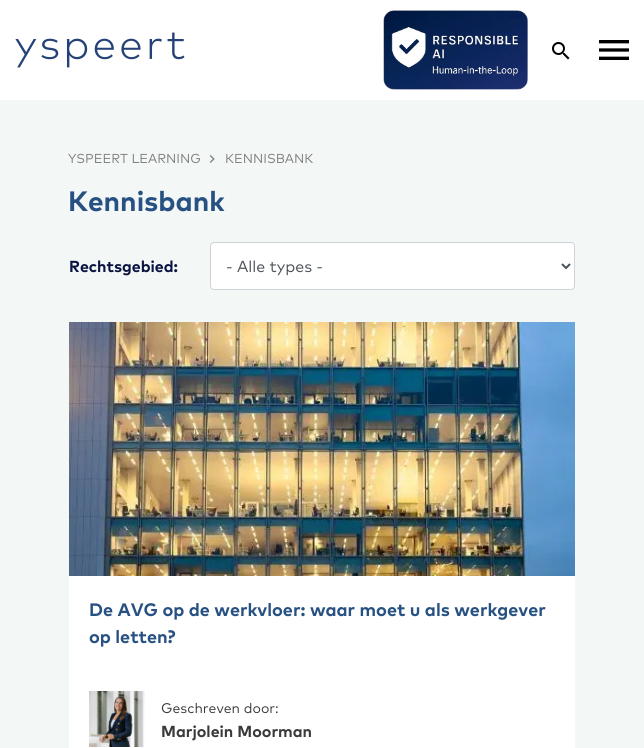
#include <cairo.h>
#include <math.h>
#include <stddef.h>

static cairo_t *ctx;

static void use_color(int r, int g, int b) {
    cairo_set_source_rgb(ctx, r / 255.0, g / 255.0, b / 255.0);
}

static void round_rect(double x, double y, double w, double h, double r) {
    cairo_new_sub_path(ctx);
    cairo_arc(ctx, x + w - r, y + h - r, r, 0, M_PI / 2);
    cairo_arc(ctx, x + r, y + h - r, r, M_PI / 2, M_PI);
    cairo_arc(ctx, x + r, y + r, r, M_PI, 1.5 * M_PI);
    cairo_arc(ctx, x + w - r, y + r, r, 1.5 * M_PI, 2 * M_PI);
    cairo_close_path(ctx);
}

static void picture(const char *path, double x, double y, double w, double h) {
    cairo_surface_t *image = cairo_image_surface_create_from_png(path);
    cairo_save(ctx);
    cairo_set_source_surface(ctx, image, x, y);
    cairo_rectangle(ctx, x, y, w, h);
    cairo_fill(ctx);
    cairo_restore(ctx);
    cairo_surface_destroy(image);
}

int main(void) {
    cairo_surface_t *surface = cairo_image_surface_create(CAIRO_FORMAT_RGB24, 644, 748);
    ctx = cairo_create(surface);
    cairo_font_options_t *options = cairo_font_options_create();
    cairo_font_options_set_hint_metrics(options, CAIRO_HINT_METRICS_OFF);
    cairo_font_options_set_hint_style(options, CAIRO_HINT_STYLE_NONE);
    cairo_set_font_options(ctx, options);
    cairo_set_miter_limit(ctx, 4);
    use_color(255, 255, 255);
    cairo_paint(ctx);
    picture("img1.png", 15, 32, 170, 36);
    picture("img2.png", 383, 10, 145, 80);
    picture("img3.png", 552, 42, 18, 18);
    picture("img4.png", 599, 40, 30, 20);
    use_color(243, 247, 246);
    cairo_rectangle(ctx, 0, 100, 644, 648);
    cairo_fill(ctx);
    cairo_select_font_face(ctx, "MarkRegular", CAIRO_FONT_SLANT_NORMAL, CAIRO_FONT_WEIGHT_NORMAL);
    cairo_set_font_size(ctx, 13);
    use_color(130, 127, 127);
    cairo_move_to(ctx, 68, 163);
    cairo_show_text(ctx, "YSPEERT LEARNING");
    picture("img5.png", 209, 155, 6, 8);
    cairo_move_to(ctx, 225, 163);
    cairo_show_text(ctx, "KENNISBANK");
    cairo_select_font_face(ctx, "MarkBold", CAIRO_FONT_SLANT_NORMAL, CAIRO_FONT_WEIGHT_BOLD);
    cairo_set_font_size(ctx, 28);
    use_color(39, 81, 130);
    cairo_move_to(ctx, 68, 211);
    cairo_show_text(ctx, "Kennisbank");
    cairo_set_font_size(ctx, 16);
    use_color(10, 19, 65);
    cairo_move_to(ctx, 69, 272);
    cairo_show_text(ctx, "Rechtsgebied:");
    use_color(255, 255, 255);
    round_rect(210.5, 242.5, 364, 47, 3.5);
    cairo_fill_preserve(ctx);
    use_color(206, 212, 218);
    cairo_set_line_width(ctx, 1);
    cairo_stroke(ctx);
    cairo_new_path(ctx);
    cairo_move_to(ctx, 562, 264);
    cairo_line_to(ctx, 566, 268);
    cairo_line_to(ctx, 570, 264);
    use_color(73, 80, 87);
    cairo_set_line_width(ctx, 2);
    cairo_stroke(ctx);
    cairo_select_font_face(ctx, "MarkRegular", CAIRO_FONT_SLANT_NORMAL, CAIRO_FONT_WEIGHT_NORMAL);
    cairo_move_to(ctx, 226, 272);
    cairo_show_text(ctx, "- Alle types -");
    use_color(255, 255, 255);
    cairo_rectangle(ctx, 69, 576, 506, 172);
    cairo_fill(ctx);
    picture("img6.png", 69, 322, 506, 254);
    cairo_select_font_face(ctx, "MarkBold", CAIRO_FONT_SLANT_NORMAL, CAIRO_FONT_WEIGHT_BOLD);
    cairo_set_font_size(ctx, 18);
    use_color(39, 81, 130);
    cairo_move_to(ctx, 89, 616);
    cairo_show_text(ctx, "De AVG op de werkvloer: waar moet u als werkgever");
    cairo_move_to(ctx, 89, 643);
    cairo_show_text(ctx, "op letten?");
    picture("img7.png", 89, 691, 56, 56);
    cairo_select_font_face(ctx, "MarkRegular", CAIRO_FONT_SLANT_NORMAL, CAIRO_FONT_WEIGHT_NORMAL);
    cairo_set_font_size(ctx, 14);
    use_color(58, 58, 58);
    cairo_move_to(ctx, 161, 713);
    cairo_show_text(ctx, "Geschreven door:");
    cairo_select_font_face(ctx, "MarkBold", CAIRO_FONT_SLANT_NORMAL, CAIRO_FONT_WEIGHT_BOLD);
    cairo_set_font_size(ctx, 16);
    cairo_move_to(ctx, 161, 737);
    cairo_show_text(ctx, "Marjolein Moorman");
    cairo_surface_write_to_png(surface, "result.png");
    cairo_font_options_destroy(options);
    cairo_destroy(ctx);
    cairo_surface_destroy(surface);
    return 0;
}
